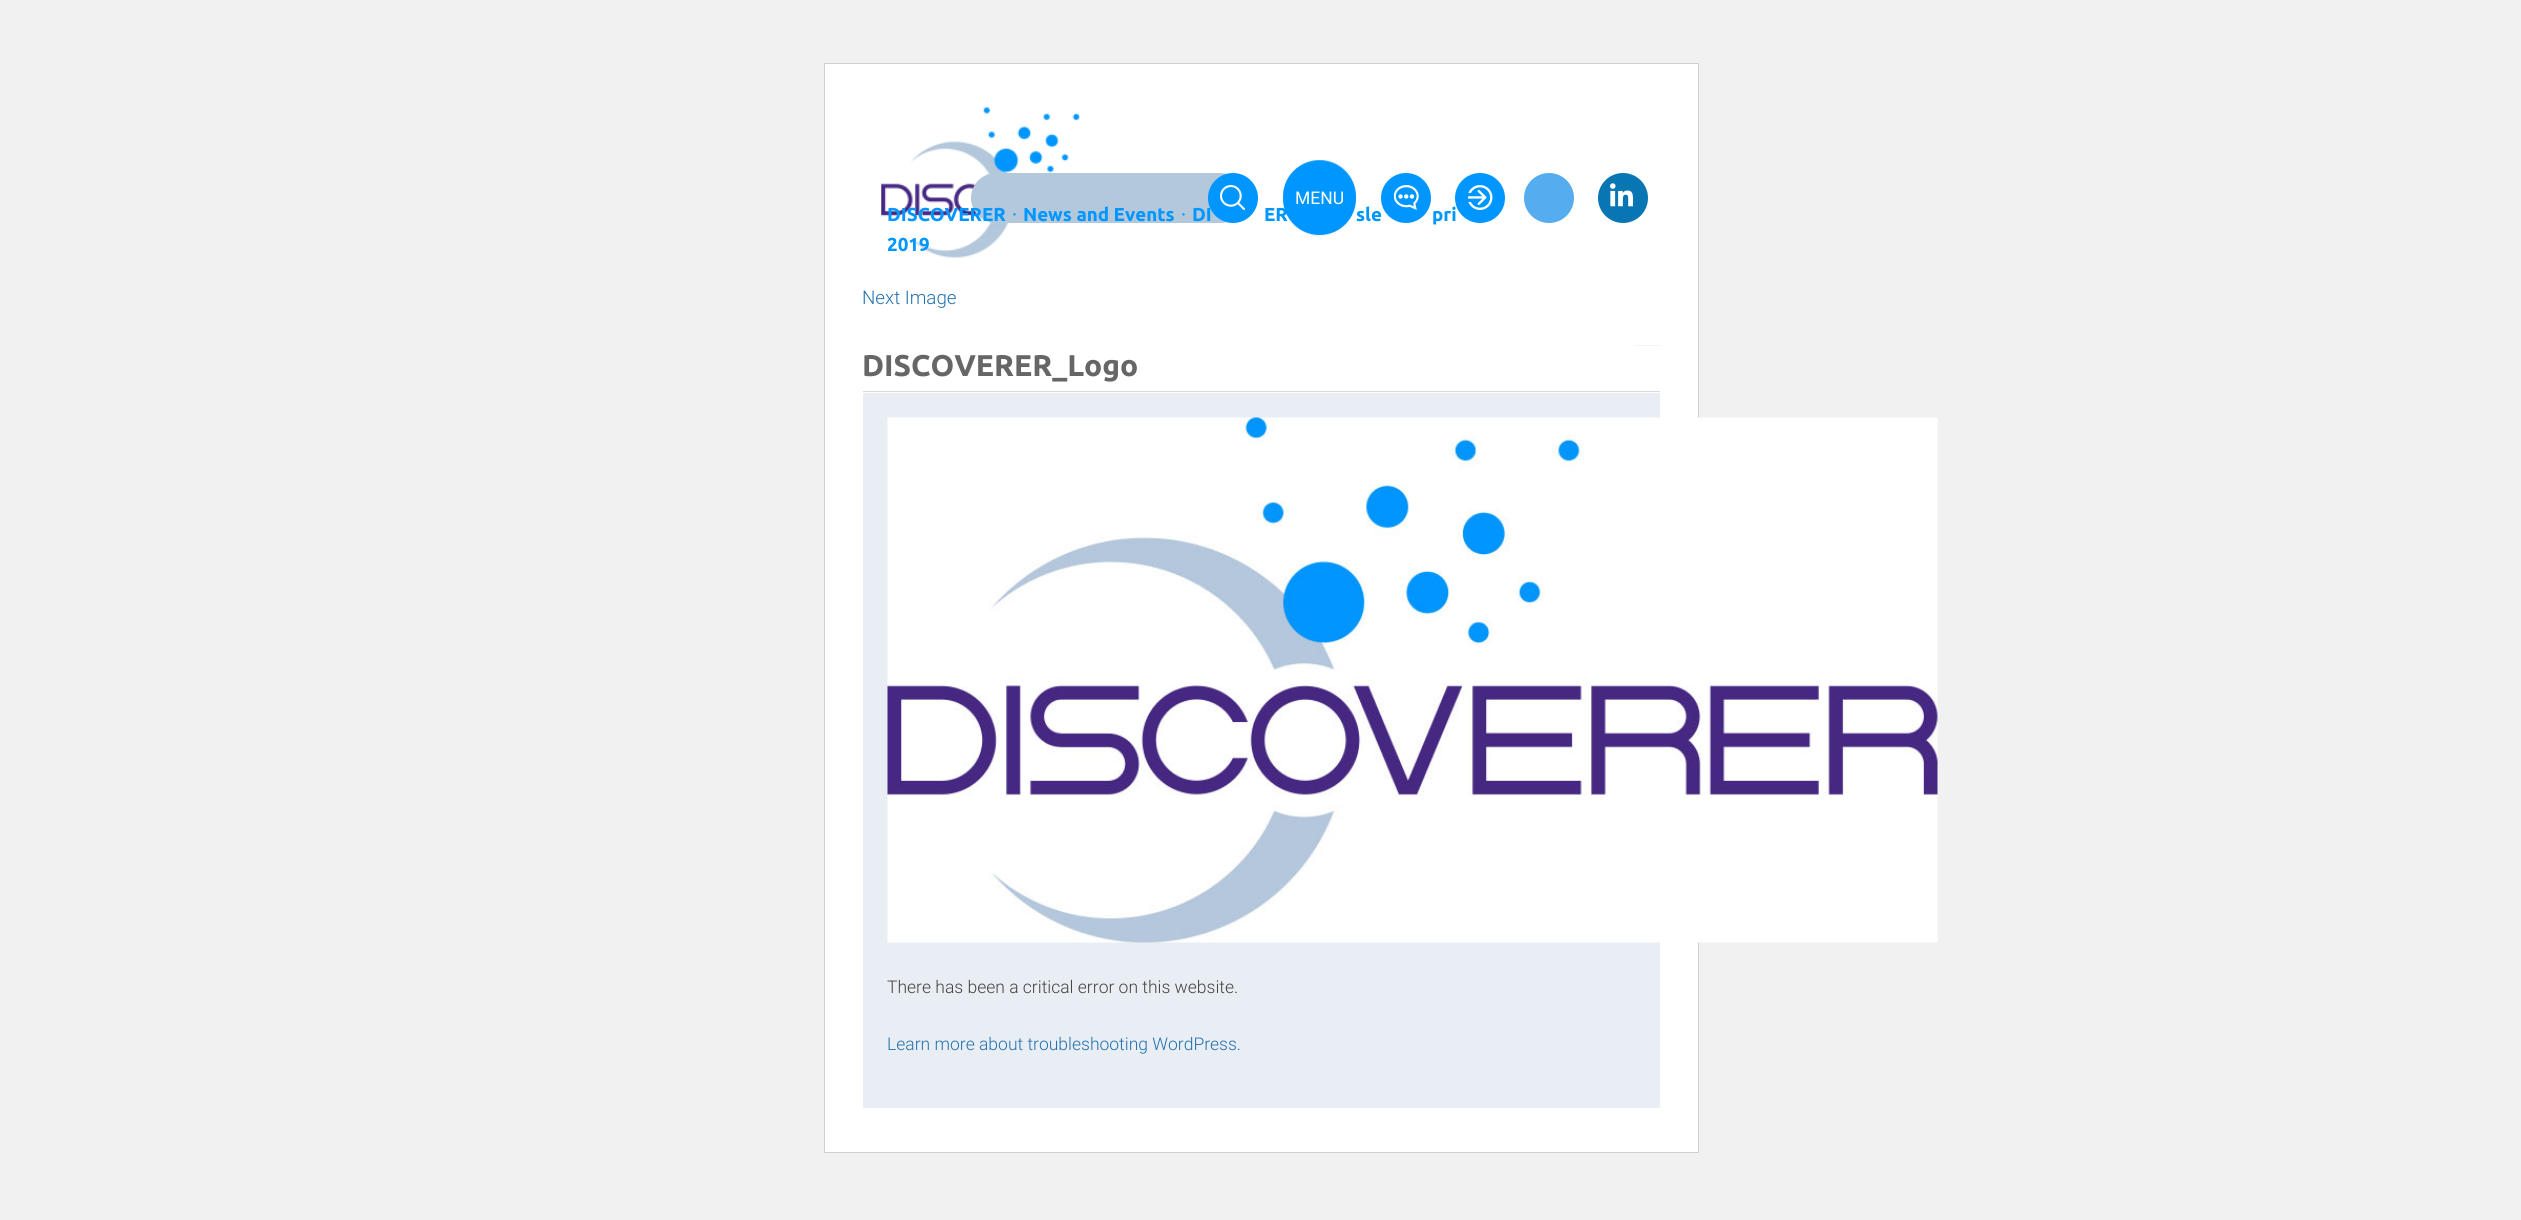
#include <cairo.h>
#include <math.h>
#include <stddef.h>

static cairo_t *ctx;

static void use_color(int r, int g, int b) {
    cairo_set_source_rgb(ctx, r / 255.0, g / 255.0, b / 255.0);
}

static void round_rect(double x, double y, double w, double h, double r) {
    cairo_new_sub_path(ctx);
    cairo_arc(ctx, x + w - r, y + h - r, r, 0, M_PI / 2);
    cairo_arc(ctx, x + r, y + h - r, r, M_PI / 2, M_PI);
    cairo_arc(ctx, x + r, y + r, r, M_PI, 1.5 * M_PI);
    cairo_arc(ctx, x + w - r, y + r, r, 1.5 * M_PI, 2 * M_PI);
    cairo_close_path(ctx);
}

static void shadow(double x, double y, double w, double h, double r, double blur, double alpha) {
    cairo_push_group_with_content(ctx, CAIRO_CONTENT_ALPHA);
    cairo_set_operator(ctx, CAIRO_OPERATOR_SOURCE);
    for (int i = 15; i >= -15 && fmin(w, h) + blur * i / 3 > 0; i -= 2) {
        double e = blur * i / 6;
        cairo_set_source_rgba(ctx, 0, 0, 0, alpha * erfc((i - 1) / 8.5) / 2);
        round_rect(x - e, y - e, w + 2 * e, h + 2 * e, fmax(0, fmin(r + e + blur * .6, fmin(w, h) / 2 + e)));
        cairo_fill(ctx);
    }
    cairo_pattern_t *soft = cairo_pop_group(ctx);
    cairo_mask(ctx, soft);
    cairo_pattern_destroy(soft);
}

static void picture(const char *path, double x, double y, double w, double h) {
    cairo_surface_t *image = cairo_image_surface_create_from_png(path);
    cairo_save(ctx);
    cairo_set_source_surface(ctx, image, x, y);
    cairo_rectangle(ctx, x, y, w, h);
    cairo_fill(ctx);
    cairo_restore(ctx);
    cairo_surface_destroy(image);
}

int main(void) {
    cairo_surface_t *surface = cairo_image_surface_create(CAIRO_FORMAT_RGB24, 2521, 1220);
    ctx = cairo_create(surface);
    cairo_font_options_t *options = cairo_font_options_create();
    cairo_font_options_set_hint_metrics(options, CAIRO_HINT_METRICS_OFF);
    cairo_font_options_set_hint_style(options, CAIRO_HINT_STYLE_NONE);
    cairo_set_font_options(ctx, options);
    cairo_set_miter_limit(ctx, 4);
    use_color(241, 241, 241);
    cairo_paint(ctx);
    use_color(255, 255, 255);
    cairo_rectangle(ctx, 824.5, 63.5, 874, 1089);
    cairo_fill_preserve(ctx);
    use_color(204, 208, 212);
    cairo_set_line_width(ctx, 1);
    cairo_stroke(ctx);
    picture("img1.png", 881, 107, 200, 151);
    use_color(180, 200, 220);
    round_rect(971, 173, 274, 50, 25);
    cairo_fill(ctx);
    use_color(0, 150, 255);
    cairo_arc(ctx, 1233, 198, 25, 0, 2 * M_PI);
    cairo_fill(ctx);
    picture("img2.png", 1220, 185, 25, 25);
    use_color(0, 0, 0);
    shadow(1283, 161, 73, 75, 36.5, 0.5, 0.07);
    use_color(0, 150, 255);
    round_rect(1283, 160, 73, 75, 36.5);
    cairo_fill(ctx);
    cairo_set_source_rgba(ctx, 1, 1, 1, 0.15);
    cairo_new_path(ctx);
    cairo_move_to(ctx, 1319, 161);
    cairo_curve_to(ctx, 1340, 161, 1356, 178, 1356, 199);
    cairo_curve_to(ctx, 1356, 157, 1302, 145, 1286, 182);
    cairo_curve_to(ctx, 1292, 169, 1305, 161, 1319, 161);
    cairo_close_path(ctx);
    cairo_fill(ctx);
    cairo_select_font_face(ctx, "Roboto", CAIRO_FONT_SLANT_NORMAL, CAIRO_FONT_WEIGHT_NORMAL);
    cairo_set_font_size(ctx, 17.5);
    use_color(255, 255, 255);
    cairo_move_to(ctx, 1295, 204);
    cairo_show_text(ctx, "MENU");
    use_color(0, 150, 255);
    cairo_new_path(ctx);
    cairo_arc(ctx, 1406, 198, 25, 0, 2 * M_PI);
    cairo_fill(ctx);
    picture("img3.png", 1394, 185, 25, 25);
    cairo_arc(ctx, 1480, 198, 25, 0, 2 * M_PI);
    cairo_fill(ctx);
    picture("img4.png", 1468, 185, 25, 25);
    use_color(85, 172, 238);
    cairo_arc(ctx, 1549, 198, 25, 0, 2 * M_PI);
    cairo_fill(ctx);
    use_color(9, 118, 180);
    cairo_arc(ctx, 1623, 198, 25, 0, 2 * M_PI);
    cairo_fill(ctx);
    picture("img5.png", 1610, 183, 23, 24);
    cairo_select_font_face(ctx, "Ubuntu", CAIRO_FONT_SLANT_NORMAL, CAIRO_FONT_WEIGHT_BOLD);
    cairo_set_font_size(ctx, 18.75);
    use_color(0, 150, 255);
    cairo_move_to(ctx, 887, 221);
    cairo_show_text(ctx, "DISCOVERER");
    cairo_select_font_face(ctx, "Liberation Serif", CAIRO_FONT_SLANT_NORMAL, CAIRO_FONT_WEIGHT_NORMAL);
    cairo_set_font_size(ctx, 20);
    cairo_move_to(ctx, 1012, 221);
    cairo_show_text(ctx, "∙");
    cairo_select_font_face(ctx, "Ubuntu", CAIRO_FONT_SLANT_NORMAL, CAIRO_FONT_WEIGHT_BOLD);
    cairo_set_font_size(ctx, 18.75);
    cairo_move_to(ctx, 1023, 221);
    cairo_show_text(ctx, "News and Events");
    cairo_select_font_face(ctx, "Liberation Serif", CAIRO_FONT_SLANT_NORMAL, CAIRO_FONT_WEIGHT_NORMAL);
    cairo_set_font_size(ctx, 20);
    cairo_move_to(ctx, 1181, 221);
    cairo_show_text(ctx, "∙");
    cairo_select_font_face(ctx, "Ubuntu", CAIRO_FONT_SLANT_NORMAL, CAIRO_FONT_WEIGHT_BOLD);
    cairo_set_font_size(ctx, 18.75);
    cairo_move_to(ctx, 1192, 221);
    cairo_show_text(ctx, "DI");
    cairo_move_to(ctx, 1264, 221);
    cairo_show_text(ctx, "ER");
    cairo_move_to(ctx, 1356, 221);
    cairo_show_text(ctx, "sle");
    cairo_move_to(ctx, 1432, 221);
    cairo_show_text(ctx, "pri");
    cairo_move_to(ctx, 887, 251);
    cairo_show_text(ctx, "2019");
    use_color(244, 244, 244);
    cairo_rectangle(ctx, 1635, 345, 25, 1);
    cairo_fill(ctx);
    cairo_select_font_face(ctx, "Roboto Light", CAIRO_FONT_SLANT_NORMAL, CAIRO_FONT_WEIGHT_NORMAL);
    use_color(34, 113, 177);
    cairo_move_to(ctx, 862, 304);
    cairo_show_text(ctx, "Next Image");
    use_color(218, 218, 218);
    cairo_rectangle(ctx, 863, 391, 797, 1);
    cairo_fill(ctx);
    cairo_select_font_face(ctx, "Ubuntu", CAIRO_FONT_SLANT_NORMAL, CAIRO_FONT_WEIGHT_BOLD);
    cairo_set_font_size(ctx, 30);
    use_color(102, 102, 102);
    cairo_move_to(ctx, 862, 376);
    cairo_show_text(ctx, "DISCOVERER_Logo");
    use_color(233, 238, 244);
    cairo_rectangle(ctx, 863, 393, 797, 715);
    cairo_fill(ctx);
    picture("img6.png", 887, 417, 1051, 526);
    cairo_select_font_face(ctx, "Roboto Light", CAIRO_FONT_SLANT_NORMAL, CAIRO_FONT_WEIGHT_NORMAL);
    cairo_set_font_size(ctx, 17.5);
    use_color(68, 68, 68);
    cairo_move_to(ctx, 887, 993);
    cairo_show_text(ctx, "There has been a critical error on this website.");
    use_color(34, 113, 177);
    cairo_move_to(ctx, 887, 1050);
    cairo_show_text(ctx, "Learn more about troubleshooting WordPress.");
    cairo_surface_write_to_png(surface, "result.png");
    cairo_font_options_destroy(options);
    cairo_destroy(ctx);
    cairo_surface_destroy(surface);
    return 0;
}
